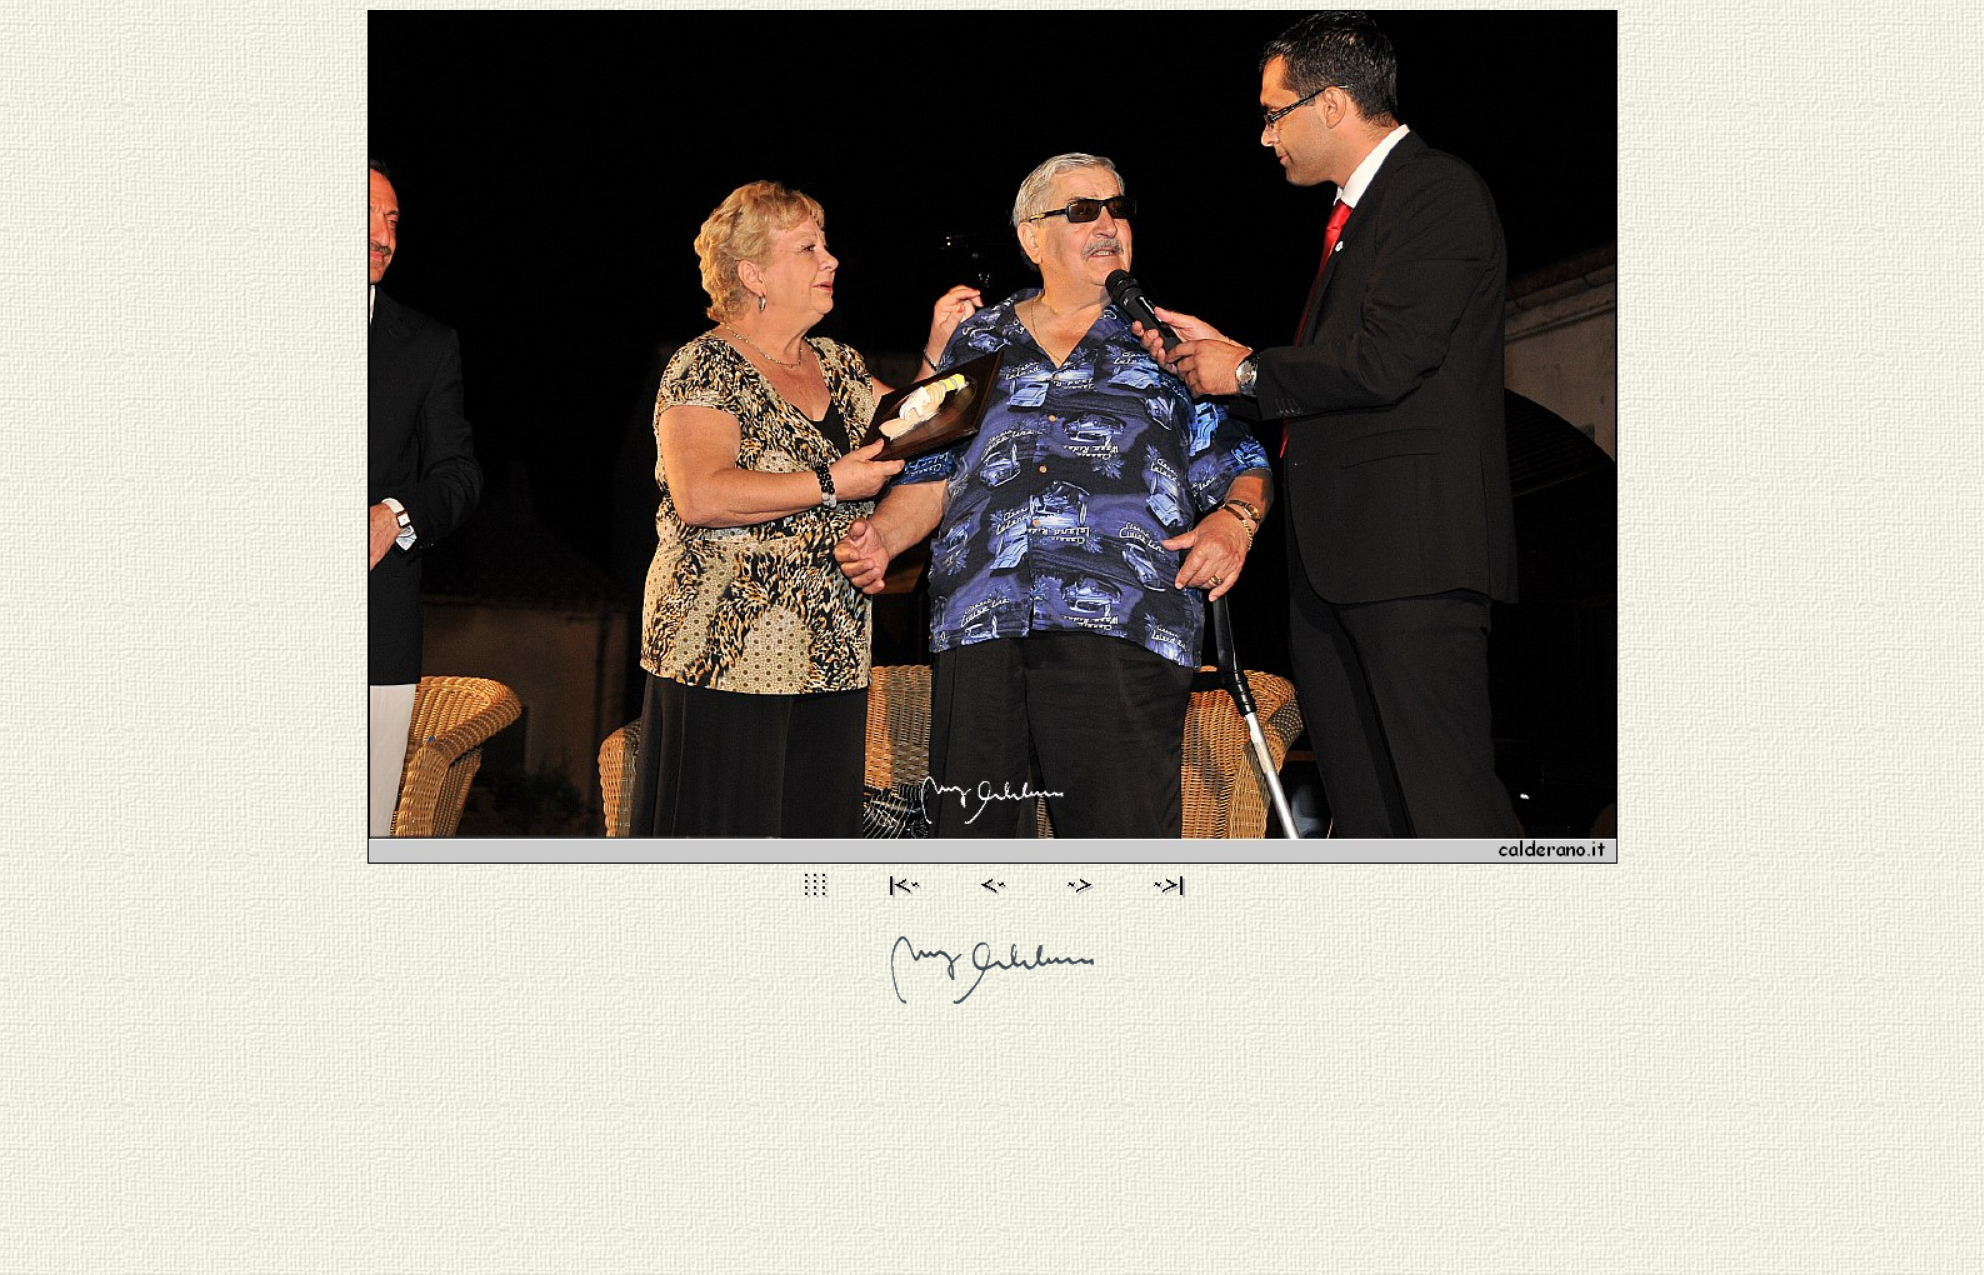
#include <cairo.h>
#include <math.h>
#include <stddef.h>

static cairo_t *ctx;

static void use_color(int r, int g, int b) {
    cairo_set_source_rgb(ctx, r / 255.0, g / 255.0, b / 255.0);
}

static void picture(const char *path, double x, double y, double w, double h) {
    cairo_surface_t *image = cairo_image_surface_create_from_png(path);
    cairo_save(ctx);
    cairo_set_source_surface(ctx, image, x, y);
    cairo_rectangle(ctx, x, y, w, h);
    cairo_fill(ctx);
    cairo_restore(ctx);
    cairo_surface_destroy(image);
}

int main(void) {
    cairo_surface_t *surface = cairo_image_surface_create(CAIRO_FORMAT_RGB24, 1984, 1275);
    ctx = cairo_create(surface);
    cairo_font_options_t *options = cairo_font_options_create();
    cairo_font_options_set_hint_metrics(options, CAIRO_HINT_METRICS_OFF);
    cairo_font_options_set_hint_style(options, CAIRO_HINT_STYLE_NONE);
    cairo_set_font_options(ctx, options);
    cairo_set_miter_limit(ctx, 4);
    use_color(255, 255, 255);
    cairo_paint(ctx);
    picture("img1.png", 0, 0, 1984, 1275);
    picture("img2.png", 367, 10, 1251, 854);
    picture("img3.png", 804, 873, 24, 25);
    picture("img4.png", 889, 876, 33, 22);
    picture("img5.png", 981, 878, 27, 18);
    picture("img6.png", 1067, 878, 27, 18);
    picture("img7.png", 1153, 876, 33, 22);
    picture("img8.png", 891, 936, 203, 68);
    cairo_surface_write_to_png(surface, "result.png");
    cairo_font_options_destroy(options);
    cairo_destroy(ctx);
    cairo_surface_destroy(surface);
    return 0;
}
